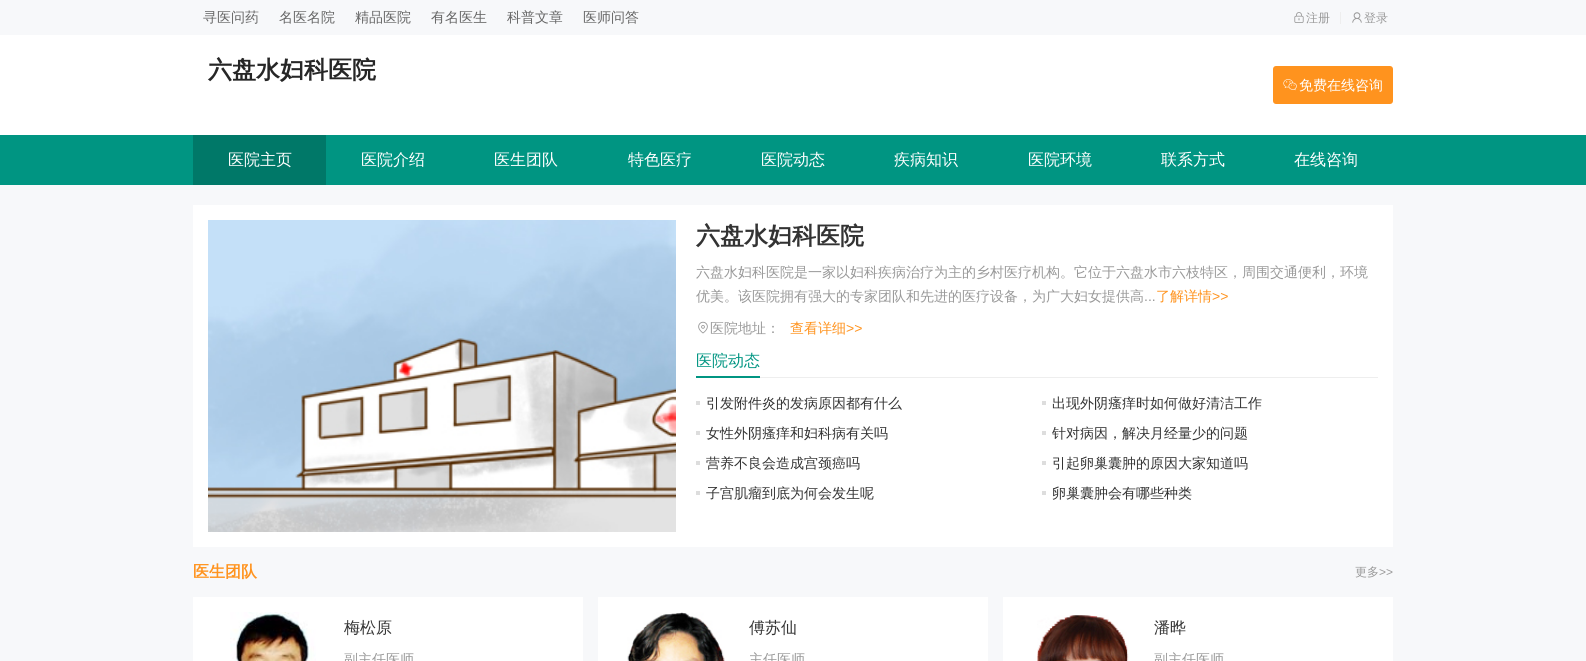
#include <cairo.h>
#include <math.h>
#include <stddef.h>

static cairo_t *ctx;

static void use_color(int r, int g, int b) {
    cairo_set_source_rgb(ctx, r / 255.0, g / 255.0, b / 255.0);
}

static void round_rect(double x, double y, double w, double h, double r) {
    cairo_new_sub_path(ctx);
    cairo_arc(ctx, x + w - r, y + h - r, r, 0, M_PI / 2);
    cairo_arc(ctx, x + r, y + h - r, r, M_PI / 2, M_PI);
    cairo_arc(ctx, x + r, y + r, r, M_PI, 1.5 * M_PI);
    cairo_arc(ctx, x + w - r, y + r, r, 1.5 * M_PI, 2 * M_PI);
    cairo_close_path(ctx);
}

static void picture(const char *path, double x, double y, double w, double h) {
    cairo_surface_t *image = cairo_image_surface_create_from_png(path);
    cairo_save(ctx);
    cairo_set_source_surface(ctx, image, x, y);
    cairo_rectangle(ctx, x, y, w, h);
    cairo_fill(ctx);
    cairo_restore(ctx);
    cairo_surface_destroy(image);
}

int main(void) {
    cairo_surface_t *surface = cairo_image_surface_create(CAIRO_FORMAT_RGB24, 1586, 661);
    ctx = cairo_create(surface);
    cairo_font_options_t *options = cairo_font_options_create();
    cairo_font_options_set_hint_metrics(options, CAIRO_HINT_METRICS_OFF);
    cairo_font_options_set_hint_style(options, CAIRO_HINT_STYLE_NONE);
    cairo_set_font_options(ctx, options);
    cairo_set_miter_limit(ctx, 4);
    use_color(247, 248, 250);
    cairo_paint(ctx);
    cairo_select_font_face(ctx, "WenQuanYi Zen Hei Medium", CAIRO_FONT_SLANT_NORMAL, CAIRO_FONT_WEIGHT_NORMAL);
    cairo_set_font_size(ctx, 14);
    use_color(102, 102, 102);
    cairo_move_to(ctx, 203, 22);
    cairo_show_text(ctx, "寻医问药");
    cairo_move_to(ctx, 279, 22);
    cairo_show_text(ctx, "名医名院");
    cairo_move_to(ctx, 355, 22);
    cairo_show_text(ctx, "精品医院");
    cairo_move_to(ctx, 431, 22);
    cairo_show_text(ctx, "有名医生");
    cairo_move_to(ctx, 507, 22);
    cairo_show_text(ctx, "科普文章");
    cairo_move_to(ctx, 583, 22);
    cairo_show_text(ctx, "医师问答");
    picture("img1.png", 1294, 12, 10, 11);
    cairo_set_font_size(ctx, 12);
    use_color(153, 153, 153);
    cairo_move_to(ctx, 1306, 22);
    cairo_show_text(ctx, "注册");
    use_color(238, 238, 238);
    cairo_rectangle(ctx, 1340, 12, 1, 12);
    cairo_fill(ctx);
    picture("img2.png", 1352, 12, 10, 11);
    use_color(153, 153, 153);
    cairo_move_to(ctx, 1364, 22);
    cairo_show_text(ctx, "登录");
    use_color(255, 255, 255);
    cairo_rectangle(ctx, 0, 35, 1586, 100);
    cairo_fill(ctx);
    cairo_select_font_face(ctx, "WenQuanYi Zen Hei", CAIRO_FONT_SLANT_NORMAL, CAIRO_FONT_WEIGHT_BOLD);
    cairo_set_font_size(ctx, 24);
    use_color(38, 38, 38);
    cairo_move_to(ctx, 208, 78);
    cairo_show_text(ctx, "六盘水妇科医院");
    use_color(255, 147, 30);
    round_rect(1273, 66, 120, 38, 3);
    cairo_fill(ctx);
    picture("img3.png", 1283, 79, 14, 12);
    cairo_select_font_face(ctx, "WenQuanYi Zen Hei Medium", CAIRO_FONT_SLANT_NORMAL, CAIRO_FONT_WEIGHT_NORMAL);
    cairo_set_font_size(ctx, 14);
    use_color(255, 255, 255);
    cairo_move_to(ctx, 1299, 90);
    cairo_show_text(ctx, "免费在线咨询");
    use_color(0, 149, 130);
    cairo_rectangle(ctx, 0, 135, 1586, 50);
    cairo_fill(ctx);
    use_color(0, 120, 104);
    cairo_rectangle(ctx, 193, 135, 133, 50);
    cairo_fill(ctx);
    cairo_set_font_size(ctx, 16);
    use_color(255, 255, 255);
    cairo_move_to(ctx, 228, 165);
    cairo_show_text(ctx, "医院主页");
    cairo_move_to(ctx, 361, 165);
    cairo_show_text(ctx, "医院介绍");
    cairo_move_to(ctx, 494, 165);
    cairo_show_text(ctx, "医生团队");
    cairo_move_to(ctx, 628, 165);
    cairo_show_text(ctx, "特色医疗");
    cairo_move_to(ctx, 761, 165);
    cairo_show_text(ctx, "医院动态");
    cairo_move_to(ctx, 894, 165);
    cairo_show_text(ctx, "疾病知识");
    cairo_move_to(ctx, 1028, 165);
    cairo_show_text(ctx, "医院环境");
    cairo_move_to(ctx, 1161, 165);
    cairo_show_text(ctx, "联系方式");
    cairo_move_to(ctx, 1294, 165);
    cairo_show_text(ctx, "在线咨询");
    cairo_rectangle(ctx, 193, 205, 1200, 342);
    cairo_fill(ctx);
    picture("img4.png", 208, 220, 468, 312);
    cairo_select_font_face(ctx, "WenQuanYi Zen Hei", CAIRO_FONT_SLANT_NORMAL, CAIRO_FONT_WEIGHT_BOLD);
    cairo_set_font_size(ctx, 24);
    use_color(51, 51, 51);
    cairo_move_to(ctx, 696, 244);
    cairo_show_text(ctx, "六盘水妇科医院");
    cairo_select_font_face(ctx, "WenQuanYi Zen Hei Medium", CAIRO_FONT_SLANT_NORMAL, CAIRO_FONT_WEIGHT_NORMAL);
    cairo_set_font_size(ctx, 14);
    use_color(153, 153, 153);
    cairo_move_to(ctx, 696, 277);
    cairo_show_text(ctx, "六盘水妇科医院是一家以妇科疾病治疗为主的乡村医疗机构。它位于六盘水市六枝特区，周围交通便利，环境");
    cairo_move_to(ctx, 696, 301);
    cairo_show_text(ctx, "优美。该医院拥有强大的专家团队和先进的医疗设备，为广大妇女提供高");
    cairo_select_font_face(ctx, "Liberation Sans", CAIRO_FONT_SLANT_NORMAL, CAIRO_FONT_WEIGHT_NORMAL);
    cairo_move_to(ctx, 1144, 301);
    cairo_show_text(ctx, "...");
    cairo_select_font_face(ctx, "WenQuanYi Zen Hei Medium", CAIRO_FONT_SLANT_NORMAL, CAIRO_FONT_WEIGHT_NORMAL);
    use_color(255, 147, 30);
    cairo_move_to(ctx, 1156, 301);
    cairo_show_text(ctx, "了解详情");
    cairo_select_font_face(ctx, "Liberation Sans", CAIRO_FONT_SLANT_NORMAL, CAIRO_FONT_WEIGHT_NORMAL);
    cairo_move_to(ctx, 1212, 301);
    cairo_show_text(ctx, ">>");
    picture("img5.png", 698, 321, 10, 13);
    cairo_select_font_face(ctx, "WenQuanYi Zen Hei Medium", CAIRO_FONT_SLANT_NORMAL, CAIRO_FONT_WEIGHT_NORMAL);
    use_color(153, 153, 153);
    cairo_move_to(ctx, 710, 333);
    cairo_show_text(ctx, "医院地址：");
    use_color(255, 147, 30);
    cairo_move_to(ctx, 790, 333);
    cairo_show_text(ctx, "查看详细");
    cairo_select_font_face(ctx, "Liberation Sans", CAIRO_FONT_SLANT_NORMAL, CAIRO_FONT_WEIGHT_NORMAL);
    cairo_move_to(ctx, 846, 333);
    cairo_show_text(ctx, ">>");
    use_color(238, 238, 238);
    cairo_rectangle(ctx, 760, 377, 618, 1);
    cairo_fill(ctx);
    use_color(0, 149, 130);
    cairo_rectangle(ctx, 696, 376, 64, 2);
    cairo_fill(ctx);
    cairo_select_font_face(ctx, "WenQuanYi Zen Hei Medium", CAIRO_FONT_SLANT_NORMAL, CAIRO_FONT_WEIGHT_NORMAL);
    cairo_set_font_size(ctx, 16);
    cairo_move_to(ctx, 696, 366);
    cairo_show_text(ctx, "医院动态");
    use_color(221, 221, 221);
    cairo_rectangle(ctx, 696, 401, 4, 4);
    cairo_fill(ctx);
    cairo_set_font_size(ctx, 14);
    use_color(51, 51, 51);
    cairo_move_to(ctx, 706, 408);
    cairo_show_text(ctx, "引发附件炎的发病原因都有什么");
    use_color(221, 221, 221);
    cairo_rectangle(ctx, 1042, 401, 4, 4);
    cairo_fill(ctx);
    use_color(51, 51, 51);
    cairo_move_to(ctx, 1052, 408);
    cairo_show_text(ctx, "出现外阴瘙痒时如何做好清洁工作");
    use_color(221, 221, 221);
    cairo_rectangle(ctx, 696, 431, 4, 4);
    cairo_fill(ctx);
    use_color(51, 51, 51);
    cairo_move_to(ctx, 706, 438);
    cairo_show_text(ctx, "女性外阴瘙痒和妇科病有关吗");
    use_color(221, 221, 221);
    cairo_rectangle(ctx, 1042, 431, 4, 4);
    cairo_fill(ctx);
    use_color(51, 51, 51);
    cairo_move_to(ctx, 1052, 438);
    cairo_show_text(ctx, "针对病因，解决月经量少的问题");
    use_color(221, 221, 221);
    cairo_rectangle(ctx, 696, 461, 4, 4);
    cairo_fill(ctx);
    use_color(51, 51, 51);
    cairo_move_to(ctx, 706, 468);
    cairo_show_text(ctx, "营养不良会造成宫颈癌吗");
    use_color(221, 221, 221);
    cairo_rectangle(ctx, 1042, 461, 4, 4);
    cairo_fill(ctx);
    use_color(51, 51, 51);
    cairo_move_to(ctx, 1052, 468);
    cairo_show_text(ctx, "引起卵巢囊肿的原因大家知道吗");
    use_color(221, 221, 221);
    cairo_rectangle(ctx, 696, 491, 4, 4);
    cairo_fill(ctx);
    use_color(51, 51, 51);
    cairo_move_to(ctx, 706, 498);
    cairo_show_text(ctx, "子宫肌瘤到底为何会发生呢");
    use_color(221, 221, 221);
    cairo_rectangle(ctx, 1042, 491, 4, 4);
    cairo_fill(ctx);
    use_color(51, 51, 51);
    cairo_move_to(ctx, 1052, 498);
    cairo_show_text(ctx, "卵巢囊肿会有哪些种类");
    cairo_select_font_face(ctx, "WenQuanYi Zen Hei", CAIRO_FONT_SLANT_NORMAL, CAIRO_FONT_WEIGHT_BOLD);
    cairo_set_font_size(ctx, 16);
    use_color(255, 147, 30);
    cairo_move_to(ctx, 193, 577);
    cairo_show_text(ctx, "医生团队");
    cairo_select_font_face(ctx, "WenQuanYi Zen Hei Medium", CAIRO_FONT_SLANT_NORMAL, CAIRO_FONT_WEIGHT_NORMAL);
    cairo_set_font_size(ctx, 12);
    use_color(153, 153, 153);
    cairo_move_to(ctx, 1355, 576);
    cairo_show_text(ctx, "更多");
    cairo_select_font_face(ctx, "Liberation Sans", CAIRO_FONT_SLANT_NORMAL, CAIRO_FONT_WEIGHT_NORMAL);
    cairo_move_to(ctx, 1379, 576);
    cairo_show_text(ctx, ">>");
    use_color(255, 255, 255);
    cairo_rectangle(ctx, 193, 597, 390, 64);
    cairo_fill(ctx);
    picture("img6.png", 230, 612, 86, 49);
    cairo_select_font_face(ctx, "WenQuanYi Zen Hei Medium", CAIRO_FONT_SLANT_NORMAL, CAIRO_FONT_WEIGHT_NORMAL);
    cairo_set_font_size(ctx, 16);
    use_color(51, 51, 51);
    cairo_move_to(ctx, 344, 633);
    cairo_show_text(ctx, "梅松原");
    cairo_set_font_size(ctx, 14);
    use_color(153, 153, 153);
    cairo_move_to(ctx, 344, 664);
    cairo_show_text(ctx, "副主任医师");
    use_color(255, 255, 255);
    cairo_rectangle(ctx, 598, 597, 390, 64);
    cairo_fill(ctx);
    picture("img7.png", 627, 612, 98, 49);
    cairo_set_font_size(ctx, 16);
    use_color(51, 51, 51);
    cairo_move_to(ctx, 749, 633);
    cairo_show_text(ctx, "傅苏仙");
    cairo_set_font_size(ctx, 14);
    use_color(153, 153, 153);
    cairo_move_to(ctx, 749, 664);
    cairo_show_text(ctx, "主任医师");
    use_color(255, 255, 255);
    cairo_rectangle(ctx, 1003, 597, 390, 64);
    cairo_fill(ctx);
    picture("img8.png", 1037, 615, 92, 46);
    cairo_set_font_size(ctx, 16);
    use_color(51, 51, 51);
    cairo_move_to(ctx, 1154, 633);
    cairo_show_text(ctx, "潘晔");
    cairo_set_font_size(ctx, 14);
    use_color(153, 153, 153);
    cairo_move_to(ctx, 1154, 664);
    cairo_show_text(ctx, "副主任医师");
    cairo_surface_write_to_png(surface, "result.png");
    cairo_font_options_destroy(options);
    cairo_destroy(ctx);
    cairo_surface_destroy(surface);
    return 0;
}
